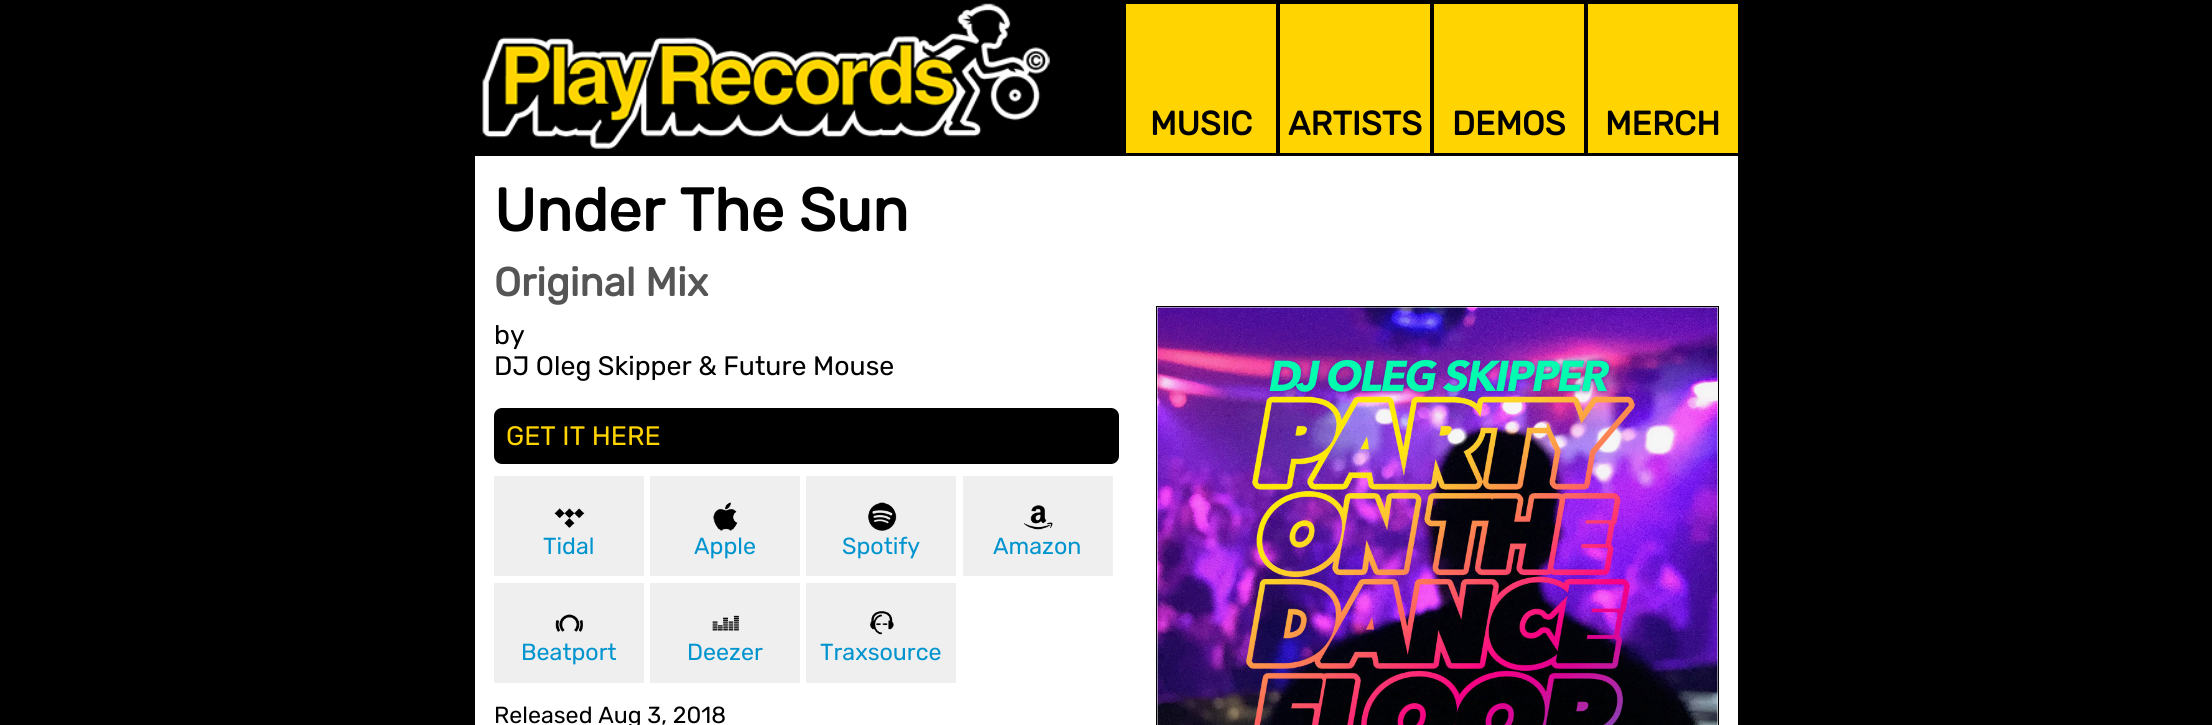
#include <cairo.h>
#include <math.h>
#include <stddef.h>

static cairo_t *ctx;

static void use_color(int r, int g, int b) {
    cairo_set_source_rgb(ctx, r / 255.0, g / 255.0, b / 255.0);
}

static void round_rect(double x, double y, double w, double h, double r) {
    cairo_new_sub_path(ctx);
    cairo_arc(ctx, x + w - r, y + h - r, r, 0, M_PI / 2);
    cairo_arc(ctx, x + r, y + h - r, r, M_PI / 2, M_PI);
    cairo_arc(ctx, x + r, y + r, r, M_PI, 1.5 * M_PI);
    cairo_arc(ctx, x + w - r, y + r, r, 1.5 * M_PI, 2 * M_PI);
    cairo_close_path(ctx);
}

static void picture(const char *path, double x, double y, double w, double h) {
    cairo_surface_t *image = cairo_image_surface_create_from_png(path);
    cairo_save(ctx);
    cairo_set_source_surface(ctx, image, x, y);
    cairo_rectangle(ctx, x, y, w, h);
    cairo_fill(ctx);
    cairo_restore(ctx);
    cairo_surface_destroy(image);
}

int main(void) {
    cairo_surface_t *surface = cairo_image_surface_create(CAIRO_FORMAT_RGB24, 2212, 725);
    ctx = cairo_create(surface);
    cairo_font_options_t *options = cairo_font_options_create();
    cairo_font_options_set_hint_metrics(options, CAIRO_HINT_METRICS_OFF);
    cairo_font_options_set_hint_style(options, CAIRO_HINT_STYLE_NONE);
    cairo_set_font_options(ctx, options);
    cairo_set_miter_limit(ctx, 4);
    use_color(0, 0, 0);
    cairo_paint(ctx);
    picture("img1.png", 482, 3, 568, 146);
    use_color(255, 212, 0);
    cairo_rectangle(ctx, 1126, 4, 150, 149);
    cairo_fill(ctx);
    cairo_select_font_face(ctx, "Rubik", CAIRO_FONT_SLANT_NORMAL, CAIRO_FONT_WEIGHT_BOLD);
    cairo_set_font_size(ctx, 33.5);
    use_color(0, 0, 0);
    cairo_move_to(ctx, 1150, 135);
    cairo_show_text(ctx, "MUSIC");
    use_color(255, 212, 0);
    cairo_rectangle(ctx, 1280, 4, 150, 149);
    cairo_fill(ctx);
    use_color(0, 0, 0);
    cairo_move_to(ctx, 1288, 135);
    cairo_show_text(ctx, "ARTISTS");
    use_color(255, 212, 0);
    cairo_rectangle(ctx, 1434, 4, 150, 149);
    cairo_fill(ctx);
    use_color(0, 0, 0);
    cairo_move_to(ctx, 1452, 135);
    cairo_show_text(ctx, "DEMOS");
    use_color(255, 212, 0);
    cairo_rectangle(ctx, 1588, 4, 150, 149);
    cairo_fill(ctx);
    use_color(0, 0, 0);
    cairo_move_to(ctx, 1605, 135);
    cairo_show_text(ctx, "MERCH");
    use_color(255, 255, 255);
    cairo_rectangle(ctx, 475, 156, 1263, 569);
    cairo_fill(ctx);
    cairo_set_font_size(ctx, 60);
    use_color(0, 0, 0);
    cairo_move_to(ctx, 494, 231);
    cairo_show_text(ctx, "Under The Sun");
    cairo_set_font_size(ctx, 40);
    use_color(85, 85, 85);
    cairo_move_to(ctx, 494, 296);
    cairo_show_text(ctx, "Original Mix");
    cairo_select_font_face(ctx, "Rubik Light", CAIRO_FONT_SLANT_NORMAL, CAIRO_FONT_WEIGHT_NORMAL);
    cairo_set_font_size(ctx, 26.7);
    use_color(0, 0, 0);
    cairo_move_to(ctx, 494, 344);
    cairo_show_text(ctx, "by");
    cairo_move_to(ctx, 494, 375);
    cairo_show_text(ctx, "DJ Oleg Skipper & Future Mouse");
    cairo_rectangle(ctx, 1156.5, 306.5, 562, 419);
    cairo_set_line_width(ctx, 1);
    cairo_stroke(ctx);
    picture("img2.png", 1157, 307, 561, 418);
    round_rect(494, 408, 625, 56, 8);
    cairo_fill(ctx);
    use_color(255, 212, 0);
    cairo_move_to(ctx, 506, 445);
    cairo_show_text(ctx, "GET IT HERE");
    use_color(239, 239, 239);
    cairo_rectangle(ctx, 494, 476, 150, 100);
    cairo_fill(ctx);
    picture("img3.png", 554, 508, 31, 20);
    cairo_set_font_size(ctx, 23.25);
    use_color(0, 148, 207);
    cairo_move_to(ctx, 543, 554);
    cairo_show_text(ctx, "Tidal");
    use_color(239, 239, 239);
    cairo_rectangle(ctx, 650, 476, 150, 100);
    cairo_fill(ctx);
    picture("img4.png", 713, 502, 25, 29);
    use_color(0, 148, 207);
    cairo_move_to(ctx, 694, 554);
    cairo_show_text(ctx, "Apple");
    use_color(239, 239, 239);
    cairo_rectangle(ctx, 806, 476, 150, 100);
    cairo_fill(ctx);
    picture("img5.png", 868, 502, 29, 29);
    use_color(0, 148, 207);
    cairo_move_to(ctx, 842, 554);
    cairo_show_text(ctx, "Spotify");
    use_color(239, 239, 239);
    cairo_rectangle(ctx, 963, 476, 150, 100);
    cairo_fill(ctx);
    picture("img6.png", 1023, 505, 30, 25);
    use_color(0, 148, 207);
    cairo_move_to(ctx, 993, 554);
    cairo_show_text(ctx, "Amazon");
    use_color(239, 239, 239);
    cairo_rectangle(ctx, 494, 583, 150, 100);
    cairo_fill(ctx);
    picture("img7.png", 555, 614, 28, 18);
    use_color(0, 148, 207);
    cairo_move_to(ctx, 521, 660);
    cairo_show_text(ctx, "Beatport");
    use_color(239, 239, 239);
    cairo_rectangle(ctx, 650, 583, 150, 100);
    cairo_fill(ctx);
    picture("img8.png", 712, 615, 27, 16);
    use_color(0, 148, 207);
    cairo_move_to(ctx, 687, 660);
    cairo_show_text(ctx, "Deezer");
    use_color(239, 239, 239);
    cairo_rectangle(ctx, 806, 583, 150, 100);
    cairo_fill(ctx);
    picture("img9.png", 870, 611, 24, 24);
    use_color(0, 148, 207);
    cairo_move_to(ctx, 820, 660);
    cairo_show_text(ctx, "Traxsource");
    use_color(0, 0, 0);
    cairo_move_to(ctx, 494, 723);
    cairo_show_text(ctx, "Released Aug 3, 2018");
    cairo_surface_write_to_png(surface, "result.png");
    cairo_font_options_destroy(options);
    cairo_destroy(ctx);
    cairo_surface_destroy(surface);
    return 0;
}
